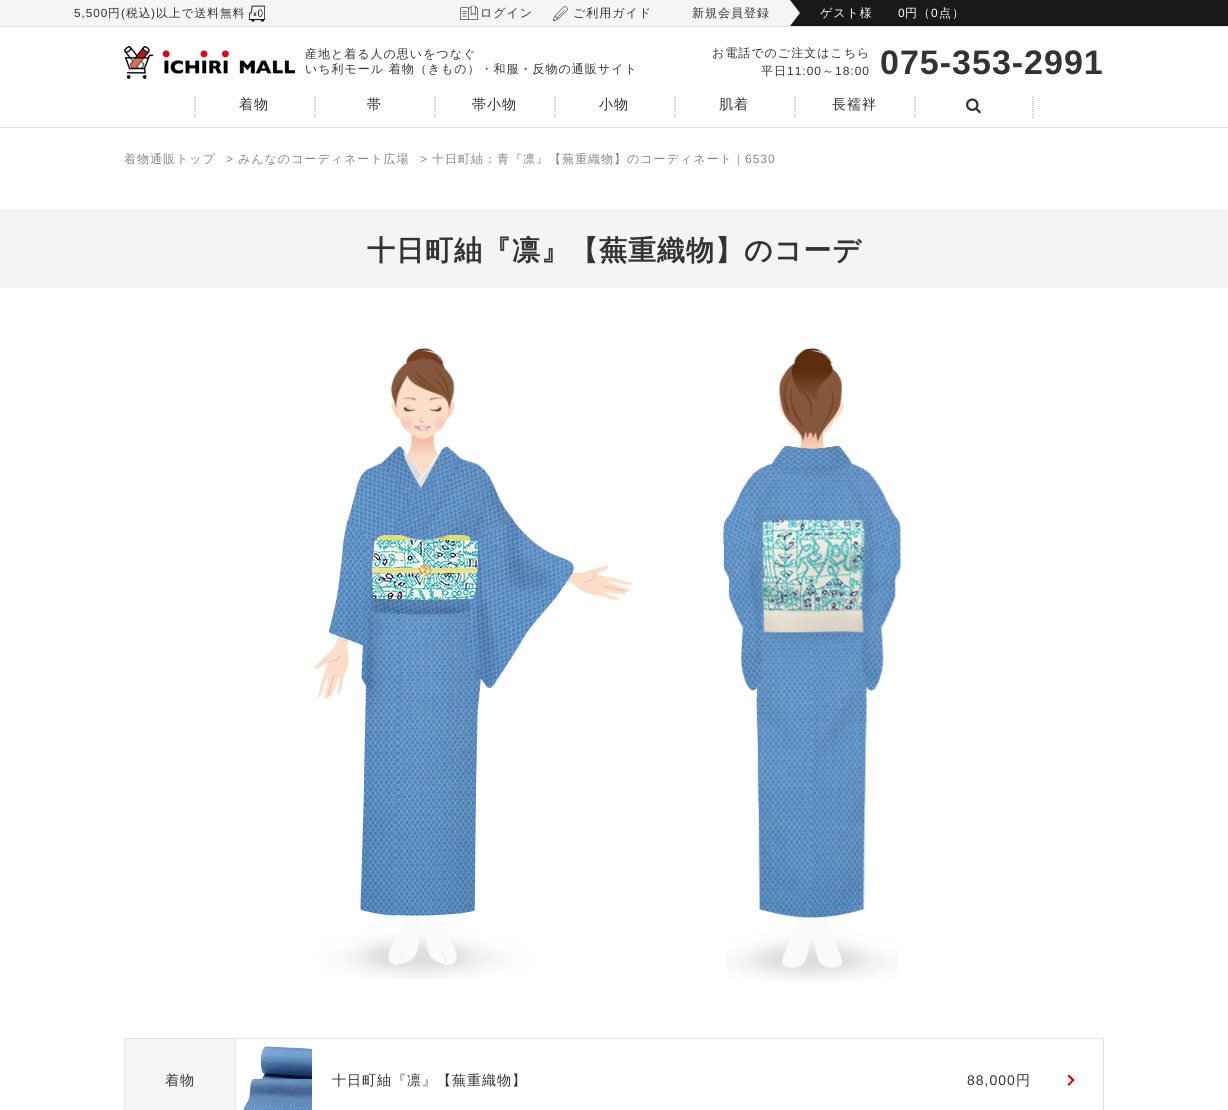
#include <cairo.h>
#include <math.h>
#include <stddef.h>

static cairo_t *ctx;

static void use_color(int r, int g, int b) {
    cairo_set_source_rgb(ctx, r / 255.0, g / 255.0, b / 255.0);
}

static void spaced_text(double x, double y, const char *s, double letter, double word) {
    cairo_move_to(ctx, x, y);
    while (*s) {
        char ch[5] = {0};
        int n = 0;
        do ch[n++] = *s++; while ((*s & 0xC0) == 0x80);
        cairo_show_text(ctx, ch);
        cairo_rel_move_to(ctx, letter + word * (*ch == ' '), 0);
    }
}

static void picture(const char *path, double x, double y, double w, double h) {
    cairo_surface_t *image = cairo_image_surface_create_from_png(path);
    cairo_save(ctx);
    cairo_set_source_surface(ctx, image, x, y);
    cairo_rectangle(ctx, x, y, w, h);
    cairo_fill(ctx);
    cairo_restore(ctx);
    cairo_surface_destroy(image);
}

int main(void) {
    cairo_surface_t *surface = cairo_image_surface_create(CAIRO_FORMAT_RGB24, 1228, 1110);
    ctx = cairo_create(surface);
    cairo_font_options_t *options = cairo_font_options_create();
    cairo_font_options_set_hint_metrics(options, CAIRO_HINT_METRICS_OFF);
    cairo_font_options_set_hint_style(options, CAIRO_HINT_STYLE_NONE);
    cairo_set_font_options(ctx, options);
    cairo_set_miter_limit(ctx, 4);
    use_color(255, 255, 255);
    cairo_paint(ctx);
    use_color(227, 227, 227);
    cairo_rectangle(ctx, 0, 26, 1228, 1);
    cairo_fill(ctx);
    picture("img1.png", 0, 0, 1228, 26);
    use_color(245, 245, 245);
    cairo_rectangle(ctx, 774, 0, 16, 26);
    cairo_fill(ctx);
    picture("img2.png", 249, 5, 16, 17);
    cairo_select_font_face(ctx, "Liberation Sans", CAIRO_FONT_SLANT_NORMAL, CAIRO_FONT_WEIGHT_NORMAL);
    cairo_set_font_size(ctx, 11.75);
    use_color(51, 51, 51);
    spaced_text(74, 17, "5,500", 1, 0);
    cairo_select_font_face(ctx, "WenQuanYi Zen Hei Medium", CAIRO_FONT_SLANT_NORMAL, CAIRO_FONT_WEIGHT_NORMAL);
    spaced_text(108, 17, "円", 1, 0);
    cairo_select_font_face(ctx, "Liberation Sans", CAIRO_FONT_SLANT_NORMAL, CAIRO_FONT_WEIGHT_NORMAL);
    spaced_text(121, 17, "(", 1, 0);
    cairo_select_font_face(ctx, "WenQuanYi Zen Hei Medium", CAIRO_FONT_SLANT_NORMAL, CAIRO_FONT_WEIGHT_NORMAL);
    spaced_text(126, 17, "税込", 1, 0);
    cairo_select_font_face(ctx, "Liberation Sans", CAIRO_FONT_SLANT_NORMAL, CAIRO_FONT_WEIGHT_NORMAL);
    spaced_text(151, 17, ")", 1, 0);
    cairo_select_font_face(ctx, "WenQuanYi Zen Hei Medium", CAIRO_FONT_SLANT_NORMAL, CAIRO_FONT_WEIGHT_NORMAL);
    spaced_text(156, 17, "以上で送料無料", 1, 0);
    picture("img3.png", 460, 5, 18, 15);
    cairo_set_font_size(ctx, 12);
    spaced_text(480, 17, "ログイン", 1, 0);
    picture("img4.png", 553, 6, 15, 15);
    spaced_text(573, 17, "ご利用ガイド", 1, 0);
    spaced_text(692, 17, "新規会員登録", 1, 0);
    use_color(245, 245, 245);
    cairo_new_path(ctx);
    cairo_move_to(ctx, 790, 26);
    cairo_line_to(ctx, 790, 0);
    cairo_line_to(ctx, 800, 13);
    cairo_close_path(ctx);
    cairo_fill(ctx);
    use_color(255, 255, 255);
    spaced_text(820, 17, "ゲスト様", 1, 0);
    cairo_select_font_face(ctx, "Liberation Sans", CAIRO_FONT_SLANT_NORMAL, CAIRO_FONT_WEIGHT_NORMAL);
    spaced_text(898, 17, "0", 1, 0);
    cairo_select_font_face(ctx, "WenQuanYi Zen Hei Medium", CAIRO_FONT_SLANT_NORMAL, CAIRO_FONT_WEIGHT_NORMAL);
    spaced_text(905, 17, "円（", 1, 0);
    cairo_select_font_face(ctx, "Liberation Sans", CAIRO_FONT_SLANT_NORMAL, CAIRO_FONT_WEIGHT_NORMAL);
    spaced_text(931, 17, "0", 1, 0);
    cairo_select_font_face(ctx, "WenQuanYi Zen Hei Medium", CAIRO_FONT_SLANT_NORMAL, CAIRO_FONT_WEIGHT_NORMAL);
    spaced_text(939, 17, "点）", 1, 0);
    use_color(227, 227, 227);
    cairo_rectangle(ctx, 0, 127, 1228, 1);
    cairo_fill(ctx);
    picture("img5.png", 124, 46, 171, 33);
    use_color(51, 51, 51);
    spaced_text(305, 58, "産地と着る人の思いをつなぐ", 1, 0);
    spaced_text(305, 73, "いち利モール 着物（きもの）・和服・反物の通販サイト", 1, 0);
    spaced_text(712, 57, "お電話でのご注文はこちら", 1, 0);
    spaced_text(761, 75, "平日", 1, 0);
    cairo_select_font_face(ctx, "Liberation Sans", CAIRO_FONT_SLANT_NORMAL, CAIRO_FONT_WEIGHT_NORMAL);
    spaced_text(787, 75, "11:00", 1, 0);
    cairo_select_font_face(ctx, "WenQuanYi Zen Hei Medium", CAIRO_FONT_SLANT_NORMAL, CAIRO_FONT_WEIGHT_NORMAL);
    spaced_text(822, 75, "～", 1, 0);
    cairo_select_font_face(ctx, "Liberation Sans", CAIRO_FONT_SLANT_NORMAL, CAIRO_FONT_WEIGHT_NORMAL);
    spaced_text(835, 75, "18:00", 1, 0);
    cairo_select_font_face(ctx, "Liberation Sans", CAIRO_FONT_SLANT_NORMAL, CAIRO_FONT_WEIGHT_BOLD);
    cairo_set_font_size(ctx, 34);
    spaced_text(880, 74, "075-353-2991", 1, 0);
    picture("img6.png", 194, 97, 2, 21);
    cairo_select_font_face(ctx, "WenQuanYi Zen Hei Medium", CAIRO_FONT_SLANT_NORMAL, CAIRO_FONT_WEIGHT_NORMAL);
    cairo_set_font_size(ctx, 14);
    spaced_text(239, 109, "着物", 1, 0);
    picture("img6.png", 314, 97, 2, 21);
    spaced_text(367, 109, "帯", 1, 0);
    picture("img6.png", 434, 97, 2, 21);
    spaced_text(472, 109, "帯小物", 1, 0);
    picture("img6.png", 554, 97, 2, 21);
    spaced_text(599, 109, "小物", 1, 0);
    picture("img6.png", 674, 97, 2, 21);
    spaced_text(719, 109, "肌着", 1, 0);
    picture("img6.png", 794, 97, 2, 21);
    spaced_text(832, 109, "長襦袢", 1, 0);
    picture("img6.png", 914, 97, 2, 21);
    picture("img7.png", 966, 98, 15, 16);
    picture("img6.png", 1032, 97, 2, 21);
    cairo_set_font_size(ctx, 12);
    use_color(133, 133, 133);
    spaced_text(124, 163, "着物通販トップ", 1, 0);
    cairo_select_font_face(ctx, "Liberation Sans", CAIRO_FONT_SLANT_NORMAL, CAIRO_FONT_WEIGHT_NORMAL);
    spaced_text(226, 163, ">", 1, 0);
    cairo_select_font_face(ctx, "WenQuanYi Zen Hei Medium", CAIRO_FONT_SLANT_NORMAL, CAIRO_FONT_WEIGHT_NORMAL);
    spaced_text(238, 163, "みんなのコーディネート広場", 1, 0);
    cairo_select_font_face(ctx, "Liberation Sans", CAIRO_FONT_SLANT_NORMAL, CAIRO_FONT_WEIGHT_NORMAL);
    spaced_text(420, 163, ">", 1, 0);
    cairo_select_font_face(ctx, "WenQuanYi Zen Hei Medium", CAIRO_FONT_SLANT_NORMAL, CAIRO_FONT_WEIGHT_NORMAL);
    spaced_text(432, 163, "十日町紬：青『凛』【蕪重織物】のコーディネート｜", 1, 0);
    cairo_select_font_face(ctx, "Liberation Sans", CAIRO_FONT_SLANT_NORMAL, CAIRO_FONT_WEIGHT_NORMAL);
    spaced_text(745, 163, "6530", 1, 0);
    use_color(244, 244, 244);
    cairo_rectangle(ctx, 0, 209, 1228, 79);
    cairo_fill(ctx);
    cairo_select_font_face(ctx, "WenQuanYi Zen Hei", CAIRO_FONT_SLANT_NORMAL, CAIRO_FONT_WEIGHT_BOLD);
    cairo_set_font_size(ctx, 28);
    use_color(51, 51, 51);
    spaced_text(367, 260, "十日町紬『凛』【蕪重織物】のコーデ", 1, 0);
    picture("img8.png", 314, 348, 318, 631);
    picture("img9.png", 329, 446, 245, 470);
    picture("img10.png", 403, 451, 38, 37);
    picture("img11.png", 377, 535, 93, 31);
    picture("img12.png", 372, 539, 106, 61);
    picture("img13.png", 372, 563, 105, 15);
    picture("img14.png", 727, 348, 171, 634);
    picture("img15.png", 723, 446, 179, 472);
    picture("img16.png", 761, 519, 104, 115);
    cairo_rectangle(ctx, 124.5, 1038.5, 979, 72);
    use_color(227, 227, 227);
    cairo_set_line_width(ctx, 1);
    cairo_stroke(ctx);
    use_color(245, 245, 245);
    cairo_rectangle(ctx, 125, 1039, 110, 71);
    cairo_fill(ctx);
    use_color(227, 227, 227);
    cairo_rectangle(ctx, 235, 1039, 1, 71);
    cairo_fill(ctx);
    cairo_select_font_face(ctx, "WenQuanYi Zen Hei Medium", CAIRO_FONT_SLANT_NORMAL, CAIRO_FONT_WEIGHT_NORMAL);
    cairo_set_font_size(ctx, 14);
    use_color(51, 51, 51);
    spaced_text(165, 1085, "着物", 1, 0);
    picture("img17.png", 244, 1046, 68, 64);
    spaced_text(332, 1085, "十日町紬『凛』【蕪重織物】", 1, 0);
    cairo_select_font_face(ctx, "Liberation Sans", CAIRO_FONT_SLANT_NORMAL, CAIRO_FONT_WEIGHT_NORMAL);
    spaced_text(967, 1085, "88,000", 1, 0);
    cairo_select_font_face(ctx, "WenQuanYi Zen Hei Medium", CAIRO_FONT_SLANT_NORMAL, CAIRO_FONT_WEIGHT_NORMAL);
    spaced_text(1016, 1085, "円", 1, 0);
    use_color(221, 0, 0);
    cairo_new_path(ctx);
    cairo_move_to(ctx, 1067.5, 1076);
    cairo_line_to(ctx, 1069, 1074.5);
    cairo_line_to(ctx, 1074.5, 1080);
    cairo_line_to(ctx, 1073, 1081.5);
    cairo_close_path(ctx);
    cairo_fill(ctx);
    cairo_new_path(ctx);
    cairo_move_to(ctx, 1067.5, 1084.5);
    cairo_line_to(ctx, 1073, 1079);
    cairo_line_to(ctx, 1074.5, 1080);
    cairo_line_to(ctx, 1069, 1086);
    cairo_close_path(ctx);
    cairo_fill(ctx);
    cairo_surface_write_to_png(surface, "result.png");
    cairo_font_options_destroy(options);
    cairo_destroy(ctx);
    cairo_surface_destroy(surface);
    return 0;
}
